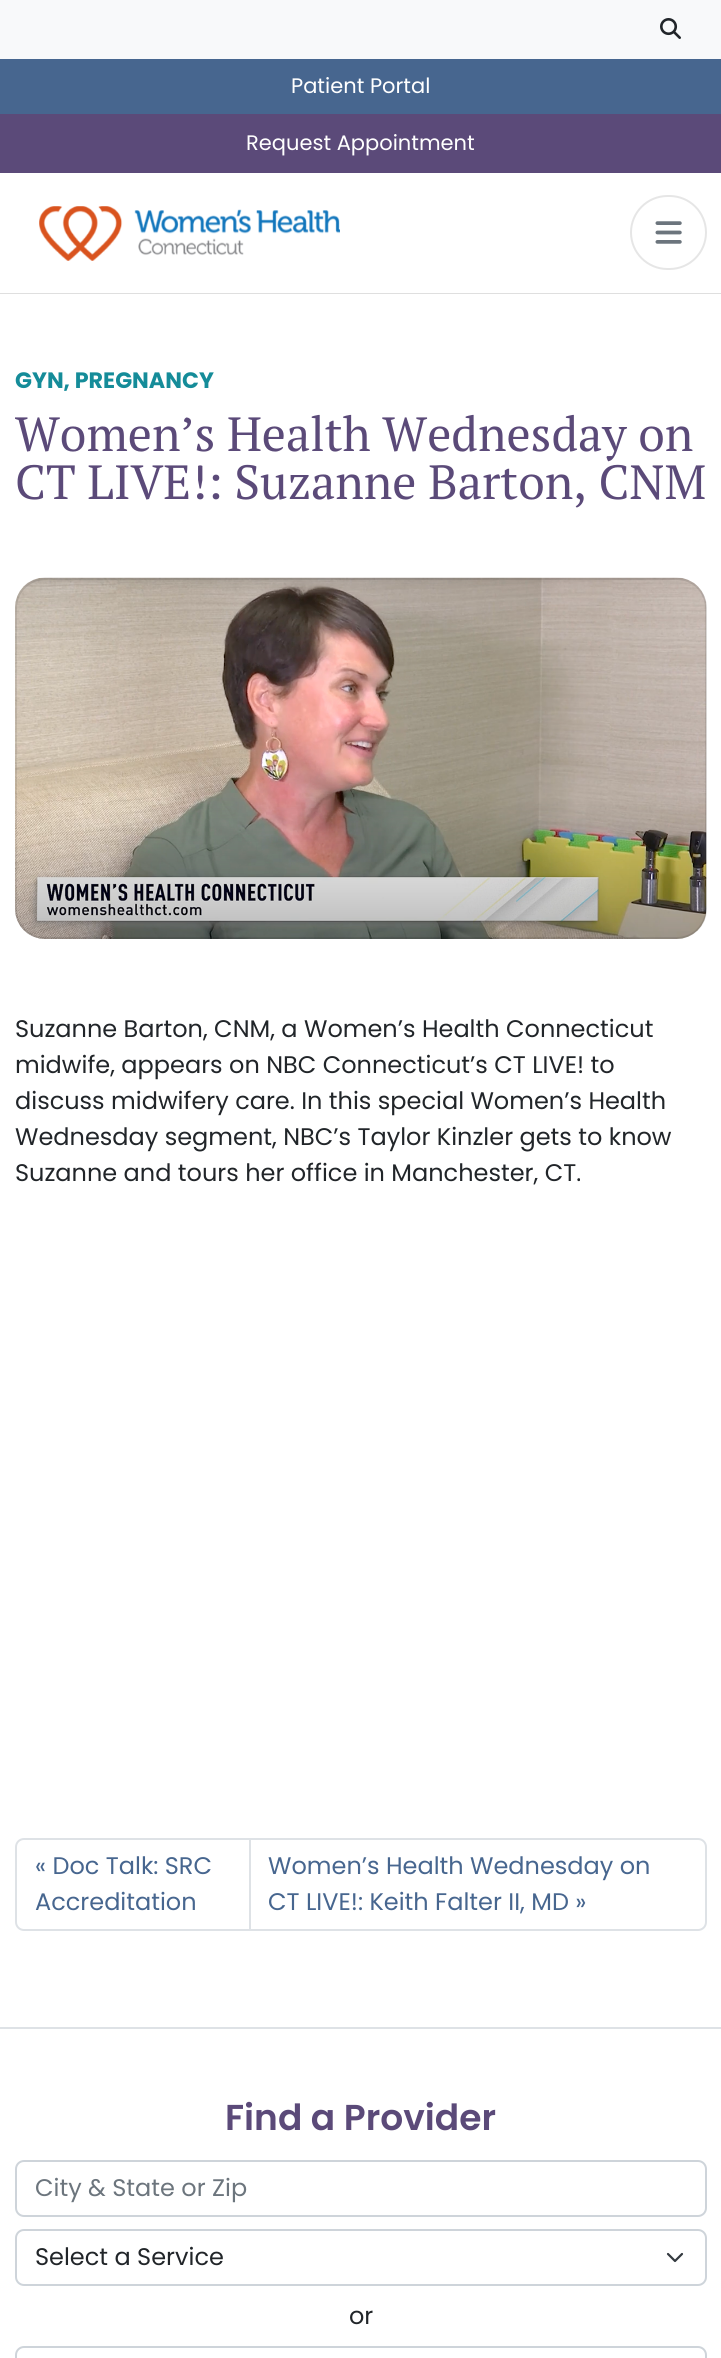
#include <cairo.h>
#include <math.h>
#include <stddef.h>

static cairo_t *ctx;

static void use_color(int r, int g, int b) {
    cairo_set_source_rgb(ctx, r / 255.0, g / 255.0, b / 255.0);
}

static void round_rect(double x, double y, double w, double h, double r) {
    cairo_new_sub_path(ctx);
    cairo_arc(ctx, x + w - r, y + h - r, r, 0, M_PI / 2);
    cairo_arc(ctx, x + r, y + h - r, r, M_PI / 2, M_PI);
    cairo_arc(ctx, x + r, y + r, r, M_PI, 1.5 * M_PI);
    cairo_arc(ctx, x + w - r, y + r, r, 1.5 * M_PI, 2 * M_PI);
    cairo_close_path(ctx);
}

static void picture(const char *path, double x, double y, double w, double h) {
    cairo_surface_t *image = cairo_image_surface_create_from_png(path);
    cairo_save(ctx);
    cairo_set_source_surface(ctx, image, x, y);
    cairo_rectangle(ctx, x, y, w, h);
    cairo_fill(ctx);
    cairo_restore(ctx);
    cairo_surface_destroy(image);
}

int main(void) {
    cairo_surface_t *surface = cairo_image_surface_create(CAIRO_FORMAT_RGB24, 721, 2358);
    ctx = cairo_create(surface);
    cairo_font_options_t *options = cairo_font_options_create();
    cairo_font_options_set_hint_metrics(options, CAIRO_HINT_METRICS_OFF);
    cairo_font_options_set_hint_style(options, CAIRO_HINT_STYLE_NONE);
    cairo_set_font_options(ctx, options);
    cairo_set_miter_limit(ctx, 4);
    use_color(255, 255, 255);
    cairo_paint(ctx);
    use_color(248, 249, 250);
    cairo_rectangle(ctx, 0, 0, 721, 59);
    cairo_fill(ctx);
    picture("img1.png", 660, 18, 21, 21);
    use_color(223, 223, 223);
    cairo_new_path(ctx);
    cairo_move_to(ctx, 0, 292);
    cairo_line_to(ctx, 0, 294);
    cairo_line_to(ctx, 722, 294);
    cairo_line_to(ctx, 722, 60);
    cairo_line_to(ctx, 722, 292);
    cairo_close_path(ctx);
    cairo_fill(ctx);
    use_color(255, 255, 255);
    cairo_rectangle(ctx, 0, 292, 721, 1);
    cairo_fill(ctx);
    use_color(71, 102, 143);
    cairo_rectangle(ctx, 0, 59, 721, 55);
    cairo_fill(ctx);
    cairo_select_font_face(ctx, "Poppins", CAIRO_FONT_SLANT_NORMAL, CAIRO_FONT_WEIGHT_NORMAL);
    cairo_set_font_size(ctx, 21);
    use_color(255, 255, 255);
    cairo_move_to(ctx, 291, 93);
    cairo_show_text(ctx, "Patient Portal");
    use_color(91, 74, 121);
    cairo_rectangle(ctx, 0, 114, 721, 59);
    cairo_fill(ctx);
    use_color(255, 255, 255);
    cairo_move_to(ctx, 246, 150);
    cairo_show_text(ctx, "Request Appointment");
    picture("img2.png", 39, 206, 301, 55);
    round_rect(631, 196, 75, 73, 36.5);
    use_color(230, 230, 230);
    cairo_stroke(ctx);
    picture("img3.png", 655, 221, 27, 23);
    cairo_select_font_face(ctx, "Poppins", CAIRO_FONT_SLANT_NORMAL, CAIRO_FONT_WEIGHT_BOLD);
    cairo_set_font_size(ctx, 22.25);
    use_color(21, 140, 153);
    cairo_move_to(ctx, 15, 388);
    cairo_show_text(ctx, "GYN, PREGNANCY");
    cairo_select_font_face(ctx, "PT Serif", CAIRO_FONT_SLANT_NORMAL, CAIRO_FONT_WEIGHT_NORMAL);
    cairo_set_font_size(ctx, 48);
    use_color(91, 74, 121);
    cairo_move_to(ctx, 15, 451);
    cairo_show_text(ctx, "Women’s Health Wednesday on");
    cairo_move_to(ctx, 15, 499);
    cairo_show_text(ctx, "CT LIVE!: Suzanne Barton, CNM");
    picture("img4.png", 15, 577, 692, 362);
    round_rect(16, 579, 690, 359, 29);
    cairo_set_source_rgba(ctx, 0, 0, 0, 0.1);
    cairo_stroke(ctx);
    cairo_select_font_face(ctx, "Poppins", CAIRO_FONT_SLANT_NORMAL, CAIRO_FONT_WEIGHT_NORMAL);
    cairo_set_font_size(ctx, 24);
    use_color(33, 37, 41);
    cairo_move_to(ctx, 15, 1037);
    cairo_show_text(ctx, "Suzanne Barton, CNM, a Women’s Health Connecticut");
    cairo_move_to(ctx, 15, 1073);
    cairo_show_text(ctx, "midwife, appears on NBC Connecticut’s CT LIVE! to");
    cairo_move_to(ctx, 15, 1109);
    cairo_show_text(ctx, "discuss midwifery care. In this special Women’s Health");
    cairo_move_to(ctx, 15, 1145);
    cairo_show_text(ctx, "Wednesday segment, NBC’s Taylor Kinzler gets to know");
    cairo_move_to(ctx, 15, 1181);
    cairo_show_text(ctx, "Suzanne and tours her office in Manchester, CT.");
    cairo_new_path(ctx);
    cairo_move_to(ctx, 24, 1839);
    cairo_line_to(ctx, 250, 1839);
    cairo_line_to(ctx, 250, 1930);
    cairo_line_to(ctx, 24, 1930);
    cairo_curve_to(ctx, 19.5, 1930, 16, 1926.5, 16, 1922);
    cairo_line_to(ctx, 16, 1847);
    cairo_curve_to(ctx, 16, 1842.5, 19.5, 1839, 24, 1839);
    cairo_close_path(ctx);
    use_color(222, 226, 230);
    cairo_stroke(ctx);
    use_color(71, 102, 143);
    cairo_move_to(ctx, 35, 1874);
    cairo_show_text(ctx, "« Doc Talk: SRC");
    cairo_move_to(ctx, 35, 1910);
    cairo_show_text(ctx, "Accreditation");
    use_color(255, 255, 255);
    cairo_new_path(ctx);
    cairo_move_to(ctx, 250, 1839);
    cairo_line_to(ctx, 698, 1839);
    cairo_curve_to(ctx, 702.5, 1839, 706, 1842.5, 706, 1847);
    cairo_line_to(ctx, 706, 1922);
    cairo_curve_to(ctx, 706, 1926.5, 702.5, 1930, 698, 1930);
    cairo_line_to(ctx, 250, 1930);
    cairo_close_path(ctx);
    cairo_fill_preserve(ctx);
    use_color(222, 226, 230);
    cairo_stroke(ctx);
    use_color(71, 102, 143);
    cairo_move_to(ctx, 268, 1874);
    cairo_show_text(ctx, "Women’s Health Wednesday on");
    cairo_move_to(ctx, 268, 1910);
    cairo_show_text(ctx, "CT LIVE!: Keith Falter II, MD »");
    use_color(222, 226, 230);
    cairo_rectangle(ctx, 0, 2027, 721, 2);
    cairo_fill(ctx);
    cairo_select_font_face(ctx, "Poppins SemiBold", CAIRO_FONT_SLANT_NORMAL, CAIRO_FONT_WEIGHT_NORMAL);
    cairo_set_font_size(ctx, 36);
    use_color(91, 74, 121);
    cairo_move_to(ctx, 225, 2130);
    cairo_show_text(ctx, "Find a Provider");
    round_rect(16, 2161, 690, 55, 8);
    use_color(206, 212, 218);
    cairo_stroke(ctx);
    cairo_select_font_face(ctx, "Poppins", CAIRO_FONT_SLANT_NORMAL, CAIRO_FONT_WEIGHT_NORMAL);
    cairo_set_font_size(ctx, 24);
    use_color(108, 117, 125);
    cairo_move_to(ctx, 35, 2196);
    cairo_show_text(ctx, "City & State or Zip");
    cairo_new_path(ctx);
    cairo_move_to(ctx, 668, 2254);
    cairo_line_to(ctx, 675, 2261);
    cairo_line_to(ctx, 682, 2254);
    use_color(52, 58, 64);
    cairo_set_line_width(ctx, 2.2);
    cairo_set_line_cap(ctx, CAIRO_LINE_CAP_ROUND);
    cairo_set_line_join(ctx, CAIRO_LINE_JOIN_ROUND);
    cairo_stroke(ctx);
    round_rect(16, 2230, 690, 55, 8);
    use_color(206, 212, 218);
    cairo_set_line_width(ctx, 2);
    cairo_set_line_cap(ctx, CAIRO_LINE_CAP_BUTT);
    cairo_set_line_join(ctx, CAIRO_LINE_JOIN_MITER);
    cairo_stroke(ctx);
    use_color(33, 37, 41);
    cairo_move_to(ctx, 35, 2265);
    cairo_show_text(ctx, "Select a Service");
    cairo_move_to(ctx, 349, 2324);
    cairo_show_text(ctx, "or");
    round_rect(16, 2347, 690, 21, 8);
    use_color(206, 212, 218);
    cairo_stroke(ctx);
    cairo_surface_write_to_png(surface, "result.png");
    cairo_font_options_destroy(options);
    cairo_destroy(ctx);
    cairo_surface_destroy(surface);
    return 0;
}
